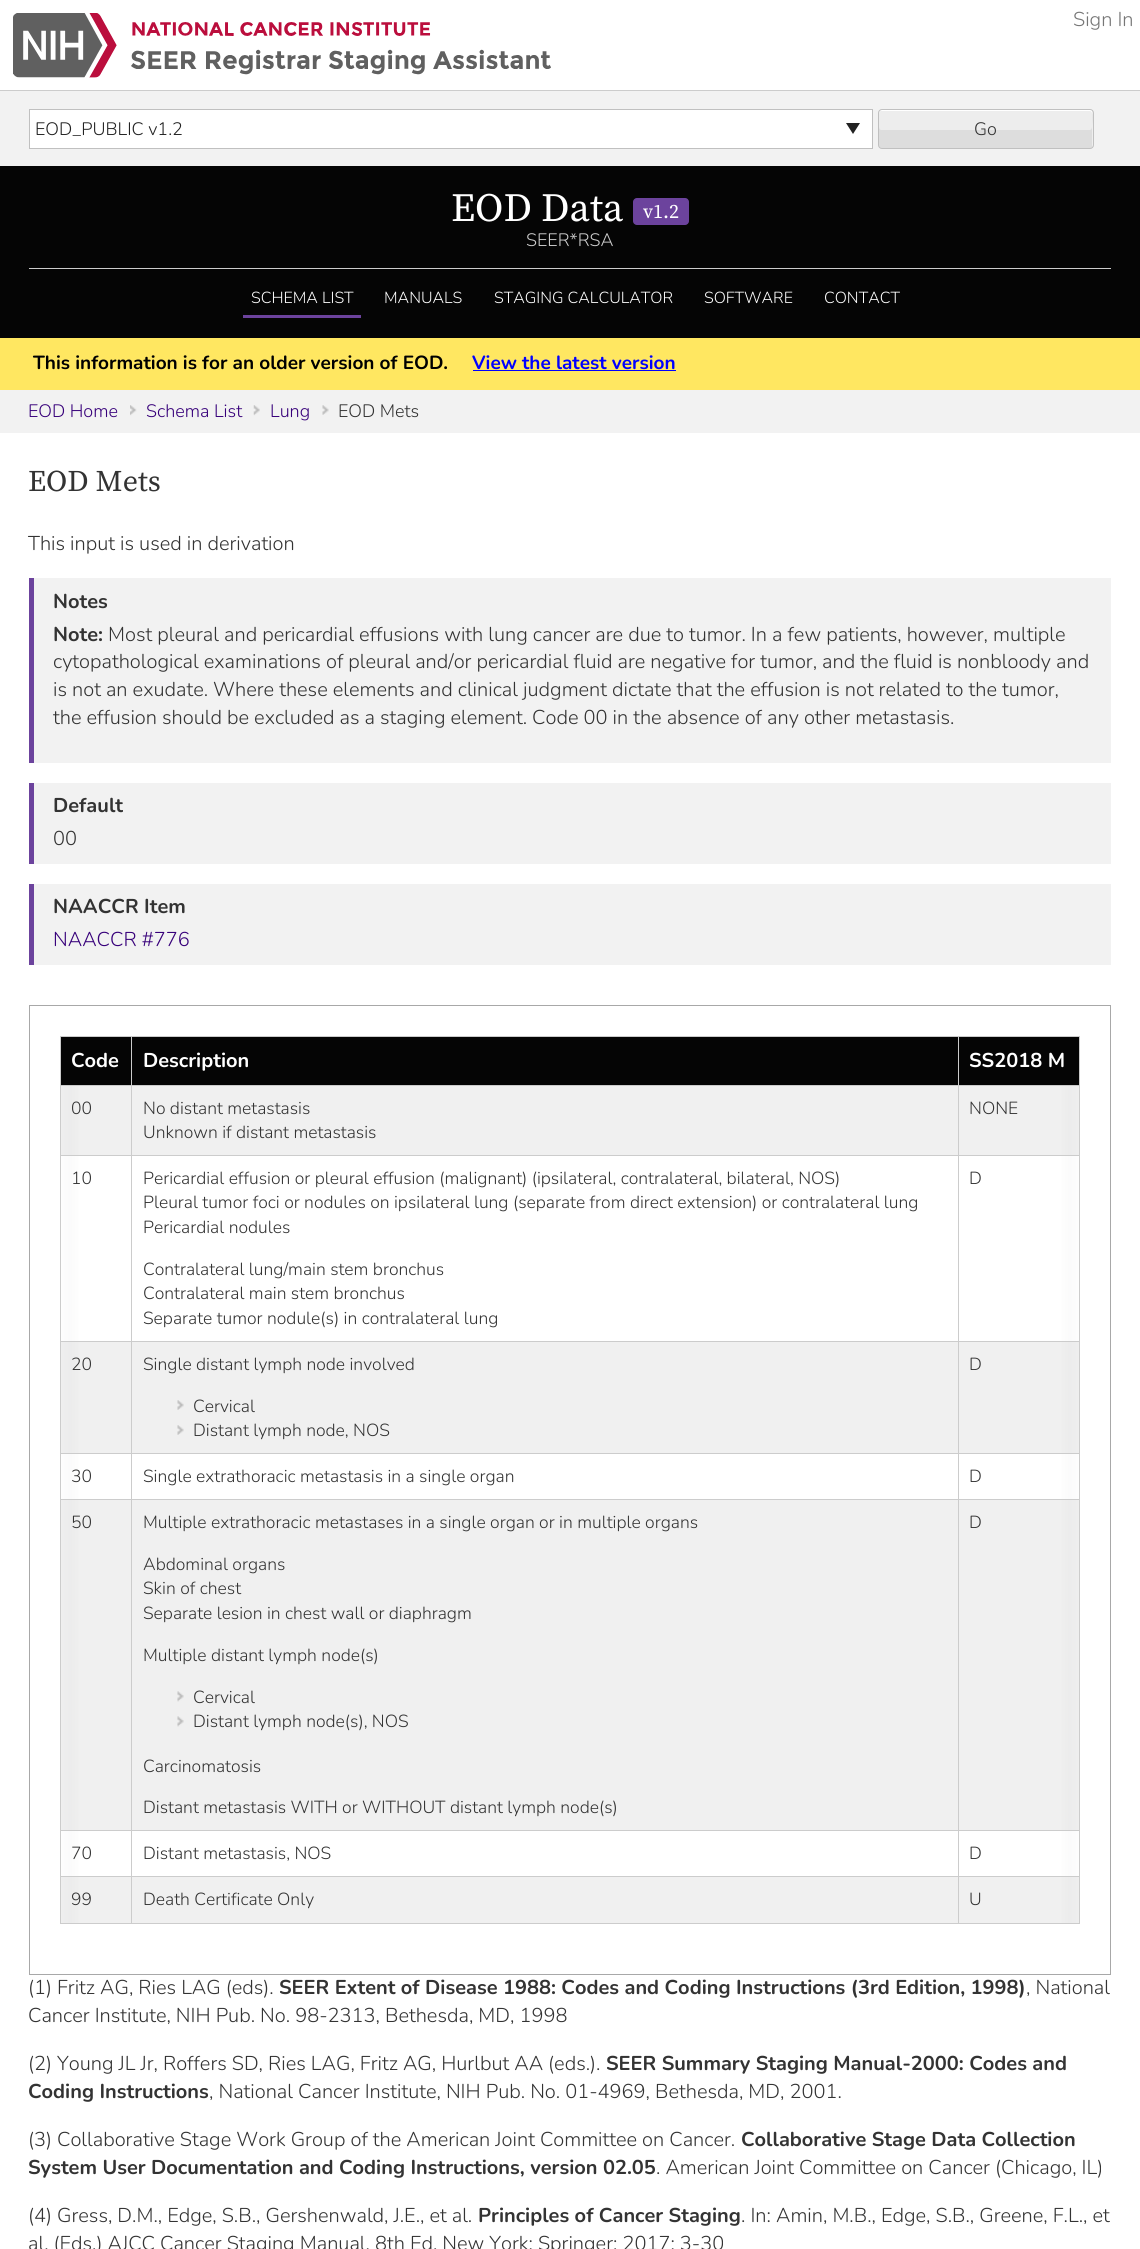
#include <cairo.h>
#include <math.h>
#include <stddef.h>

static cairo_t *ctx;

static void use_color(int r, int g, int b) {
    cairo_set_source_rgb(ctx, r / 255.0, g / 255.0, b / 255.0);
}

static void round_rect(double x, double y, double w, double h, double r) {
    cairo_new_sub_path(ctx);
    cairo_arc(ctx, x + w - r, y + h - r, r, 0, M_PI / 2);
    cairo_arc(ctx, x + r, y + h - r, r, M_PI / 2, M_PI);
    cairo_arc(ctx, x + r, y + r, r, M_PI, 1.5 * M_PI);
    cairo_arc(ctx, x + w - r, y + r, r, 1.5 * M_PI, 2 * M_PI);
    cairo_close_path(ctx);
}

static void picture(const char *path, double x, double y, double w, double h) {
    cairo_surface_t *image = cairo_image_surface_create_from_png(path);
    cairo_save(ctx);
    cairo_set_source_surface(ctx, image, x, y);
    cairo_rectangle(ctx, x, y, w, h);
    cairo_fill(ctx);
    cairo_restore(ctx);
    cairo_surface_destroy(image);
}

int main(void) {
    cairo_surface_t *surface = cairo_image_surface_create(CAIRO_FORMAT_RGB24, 1140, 2249);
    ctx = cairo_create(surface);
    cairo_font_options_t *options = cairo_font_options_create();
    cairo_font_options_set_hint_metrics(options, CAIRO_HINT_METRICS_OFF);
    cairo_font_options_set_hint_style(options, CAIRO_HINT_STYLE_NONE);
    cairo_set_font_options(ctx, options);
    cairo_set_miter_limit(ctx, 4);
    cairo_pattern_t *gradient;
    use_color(5, 5, 5);
    cairo_paint(ctx);
    use_color(255, 255, 255);
    cairo_rectangle(ctx, 0, 0, 1140, 90);
    cairo_fill(ctx);
    cairo_select_font_face(ctx, "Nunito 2 ExtraLight", CAIRO_FONT_SLANT_NORMAL, CAIRO_FONT_WEIGHT_NORMAL);
    cairo_set_font_size(ctx, 20);
    use_color(118, 118, 118);
    cairo_move_to(ctx, 1073, 26);
    cairo_show_text(ctx, "Sign In");
    picture("img1.png", 13, 13, 538, 65);
    use_color(242, 242, 242);
    cairo_rectangle(ctx, 0, 91, 1140, 75);
    cairo_fill(ctx);
    use_color(204, 204, 204);
    cairo_rectangle(ctx, 0, 90, 1140, 1);
    cairo_fill(ctx);
    use_color(255, 255, 255);
    cairo_rectangle(ctx, 30, 110, 842, 38);
    cairo_fill(ctx);
    use_color(34, 34, 34);
    cairo_new_path(ctx);
    cairo_move_to(ctx, 860, 123);
    cairo_line_to(ctx, 853, 134);
    cairo_line_to(ctx, 846, 123);
    cairo_close_path(ctx);
    cairo_fill(ctx);
    cairo_rectangle(ctx, 29.5, 109.5, 843, 39);
    use_color(192, 192, 192);
    cairo_set_line_width(ctx, 1);
    cairo_stroke(ctx);
    cairo_set_font_size(ctx, 18);
    use_color(34, 34, 34);
    cairo_move_to(ctx, 35, 135);
    cairo_show_text(ctx, "EOD_PUBLIC v1.2");
    use_color(237, 237, 237);
    round_rect(878, 109, 216, 40, 4);
    cairo_fill(ctx);
    use_color(255, 255, 255);
    cairo_new_path(ctx);
    cairo_move_to(ctx, 881, 111);
    cairo_line_to(ctx, 1090, 111);
    cairo_curve_to(ctx, 1094, 111, 1092, 123, 1092, 125);
    cairo_line_to(ctx, 1092, 148);
    cairo_line_to(ctx, 1093, 146);
    cairo_line_to(ctx, 1093, 112);
    cairo_curve_to(ctx, 1093, 111, 1092, 110, 1090, 110);
    cairo_line_to(ctx, 882, 110);
    cairo_curve_to(ctx, 879, 110, 879, 112, 879, 114);
    cairo_curve_to(ctx, 879, 112, 880, 111, 881, 111);
    cairo_close_path(ctx);
    cairo_fill(ctx);
    cairo_set_source_rgba(ctx, 0, 0, 0, 0.07);
    cairo_new_path(ctx);
    cairo_move_to(ctx, 879, 127);
    cairo_line_to(ctx, 879, 146);
    cairo_curve_to(ctx, 879, 147, 880, 148, 882, 148);
    cairo_line_to(ctx, 1090, 148);
    cairo_curve_to(ctx, 1092, 148, 1093, 147, 1093, 146);
    cairo_line_to(ctx, 1093, 112);
    cairo_curve_to(ctx, 1093, 112, 1093, 111, 1092, 110);
    cairo_line_to(ctx, 1092, 127);
    cairo_curve_to(ctx, 1092, 128, 1091, 130, 1090, 130);
    cairo_line_to(ctx, 881, 130);
    cairo_curve_to(ctx, 880, 130, 879, 128, 879, 127);
    cairo_close_path(ctx);
    cairo_fill(ctx);
    round_rect(878.5, 109.5, 215, 39, 3.5);
    use_color(192, 192, 192);
    cairo_stroke(ctx);
    use_color(51, 51, 51);
    cairo_move_to(ctx, 974, 135);
    cairo_show_text(ctx, "Go");
    cairo_select_font_face(ctx, "Source Serif Pro", CAIRO_FONT_SLANT_NORMAL, CAIRO_FONT_WEIGHT_NORMAL);
    cairo_set_font_size(ctx, 40);
    use_color(255, 255, 255);
    cairo_move_to(ctx, 451, 221);
    cairo_show_text(ctx, "EOD Data");
    use_color(108, 67, 157);
    round_rect(633, 198, 56, 27, 4);
    cairo_fill(ctx);
    cairo_set_font_size(ctx, 20);
    use_color(255, 255, 255);
    cairo_move_to(ctx, 643, 218);
    cairo_show_text(ctx, "v1.2");
    cairo_select_font_face(ctx, "Nunito 2 ExtraLight", CAIRO_FONT_SLANT_NORMAL, CAIRO_FONT_WEIGHT_NORMAL);
    cairo_set_font_size(ctx, 18);
    use_color(204, 204, 204);
    cairo_move_to(ctx, 526, 246);
    cairo_show_text(ctx, "SEER*RSA");
    cairo_rectangle(ctx, 29, 268, 1082, 1);
    cairo_fill(ctx);
    use_color(108, 67, 157);
    cairo_rectangle(ctx, 243, 315, 118, 3);
    cairo_fill(ctx);
    cairo_set_font_size(ctx, 16);
    use_color(255, 255, 255);
    cairo_move_to(ctx, 251, 303);
    cairo_show_text(ctx, "SCHEMA LIST");
    cairo_move_to(ctx, 384, 303);
    cairo_show_text(ctx, "MANUALS");
    cairo_move_to(ctx, 494, 303);
    cairo_show_text(ctx, "STAGING CALCULATOR");
    cairo_move_to(ctx, 704, 303);
    cairo_show_text(ctx, "SOFTWARE");
    cairo_move_to(ctx, 824, 303);
    cairo_show_text(ctx, "CONTACT");
    use_color(255, 231, 97);
    cairo_rectangle(ctx, 0, 338, 1140, 52);
    cairo_fill(ctx);
    cairo_select_font_face(ctx, "Nunito ExtraLight", CAIRO_FONT_SLANT_NORMAL, CAIRO_FONT_WEIGHT_NORMAL);
    cairo_set_font_size(ctx, 19);
    use_color(0, 0, 0);
    cairo_move_to(ctx, 33, 369);
    cairo_show_text(ctx, "This information is for an older version of EOD.");
    use_color(0, 0, 255);
    cairo_move_to(ctx, 472, 369);
    cairo_show_text(ctx, "View the latest version");
    cairo_rectangle(ctx, 473, 370, 203, 1);
    cairo_fill(ctx);
    use_color(242, 242, 242);
    cairo_rectangle(ctx, 0, 390, 1140, 43);
    cairo_fill(ctx);
    picture("img2.png", 130, 405, 7, 11);
    cairo_select_font_face(ctx, "Nunito 2 ExtraLight", CAIRO_FONT_SLANT_NORMAL, CAIRO_FONT_WEIGHT_NORMAL);
    cairo_set_font_size(ctx, 18);
    use_color(55, 0, 122);
    cairo_move_to(ctx, 28, 417);
    cairo_show_text(ctx, "EOD Home");
    picture("img3.png", 253, 405, 7, 11);
    cairo_move_to(ctx, 146, 417);
    cairo_show_text(ctx, "Schema List");
    picture("img4.png", 322, 405, 7, 10);
    cairo_move_to(ctx, 270, 417);
    cairo_show_text(ctx, "Lung");
    use_color(51, 51, 51);
    cairo_move_to(ctx, 338, 417);
    cairo_show_text(ctx, "EOD Mets");
    use_color(255, 255, 255);
    cairo_rectangle(ctx, 0, 433, 1140, 1816);
    cairo_fill(ctx);
    cairo_select_font_face(ctx, "Source Serif Pro", CAIRO_FONT_SLANT_NORMAL, CAIRO_FONT_WEIGHT_NORMAL);
    cairo_set_font_size(ctx, 30);
    use_color(51, 51, 51);
    cairo_move_to(ctx, 28, 491);
    cairo_show_text(ctx, "EOD Mets");
    cairo_select_font_face(ctx, "Nunito 2 ExtraLight", CAIRO_FONT_SLANT_NORMAL, CAIRO_FONT_WEIGHT_NORMAL);
    cairo_set_font_size(ctx, 20);
    cairo_move_to(ctx, 28, 550);
    cairo_show_text(ctx, "This input is used in derivation");
    use_color(242, 242, 242);
    cairo_rectangle(ctx, 34, 578, 1077, 185);
    cairo_fill(ctx);
    use_color(108, 67, 157);
    cairo_rectangle(ctx, 29, 578, 5, 185);
    cairo_fill(ctx);
    cairo_select_font_face(ctx, "Nunito ExtraLight", CAIRO_FONT_SLANT_NORMAL, CAIRO_FONT_WEIGHT_NORMAL);
    use_color(51, 51, 51);
    cairo_move_to(ctx, 53, 608);
    cairo_show_text(ctx, "Notes");
    cairo_move_to(ctx, 53, 641);
    cairo_show_text(ctx, "Note:");
    cairo_select_font_face(ctx, "Nunito 2 ExtraLight", CAIRO_FONT_SLANT_NORMAL, CAIRO_FONT_WEIGHT_NORMAL);
    cairo_move_to(ctx, 108, 641);
    cairo_show_text(ctx, "Most pleural and pericardial effusions with lung cancer are due to tumor. In a few patients, however, multiple");
    cairo_move_to(ctx, 53, 668);
    cairo_show_text(ctx, "cytopathological examinations of pleural and/or pericardial fluid are negative for tumor, and the fluid is nonbloody and");
    cairo_move_to(ctx, 53, 696);
    cairo_show_text(ctx, "is not an exudate. Where these elements and clinical judgment dictate that the effusion is not related to the tumor,");
    cairo_move_to(ctx, 53, 724);
    cairo_show_text(ctx, "the effusion should be excluded as a staging element. Code 00 in the absence of any other metastasis.");
    use_color(242, 242, 242);
    cairo_rectangle(ctx, 34, 783, 1077, 81);
    cairo_fill(ctx);
    use_color(108, 67, 157);
    cairo_rectangle(ctx, 29, 783, 5, 81);
    cairo_fill(ctx);
    cairo_select_font_face(ctx, "Nunito ExtraLight", CAIRO_FONT_SLANT_NORMAL, CAIRO_FONT_WEIGHT_NORMAL);
    use_color(51, 51, 51);
    cairo_move_to(ctx, 53, 812);
    cairo_show_text(ctx, "Default");
    cairo_select_font_face(ctx, "Nunito 2 ExtraLight", CAIRO_FONT_SLANT_NORMAL, CAIRO_FONT_WEIGHT_NORMAL);
    cairo_move_to(ctx, 53, 845);
    cairo_show_text(ctx, "00");
    use_color(242, 242, 242);
    cairo_rectangle(ctx, 34, 884, 1077, 81);
    cairo_fill(ctx);
    use_color(108, 67, 157);
    cairo_rectangle(ctx, 29, 884, 5, 81);
    cairo_fill(ctx);
    cairo_select_font_face(ctx, "Nunito ExtraLight", CAIRO_FONT_SLANT_NORMAL, CAIRO_FONT_WEIGHT_NORMAL);
    use_color(51, 51, 51);
    cairo_move_to(ctx, 53, 913);
    cairo_show_text(ctx, "NAACCR Item");
    cairo_select_font_face(ctx, "Nunito 2 ExtraLight", CAIRO_FONT_SLANT_NORMAL, CAIRO_FONT_WEIGHT_NORMAL);
    use_color(55, 0, 122);
    cairo_move_to(ctx, 53, 946);
    cairo_show_text(ctx, "NAACCR #776");
    cairo_rectangle(ctx, 29.5, 1005.5, 1081, 969);
    use_color(168, 168, 168);
    cairo_stroke(ctx);
    gradient = cairo_pattern_create_linear(1080, 1480, 1060, 1480);
    cairo_pattern_add_color_stop_rgba(gradient, 0, 0.765, 0.765, 0.773, 1);
    cairo_pattern_add_color_stop_rgba(gradient, 1, 1, 1, 1, 1);
    cairo_set_source(ctx, gradient);
    cairo_pattern_destroy(gradient);
    cairo_rectangle(ctx, 1061, 1086, 18, 837);
    cairo_fill(ctx);
    gradient = cairo_pattern_create_linear(60, 1480, 80, 1480);
    cairo_pattern_add_color_stop_rgba(gradient, 0, 0.765, 0.765, 0.773, 1);
    cairo_pattern_add_color_stop_rgba(gradient, 1, 1, 1, 1, 1);
    cairo_set_source(ctx, gradient);
    cairo_pattern_destroy(gradient);
    cairo_rectangle(ctx, 61, 1086, 18, 837);
    cairo_fill(ctx);
    gradient = cairo_pattern_create_linear(1080, 1480, 1000, 1480);
    cairo_pattern_add_color_stop_rgba(gradient, 0, 1, 1, 1, 1);
    cairo_pattern_add_color_stop_rgba(gradient, 1, 1, 1, 1, 0);
    cairo_set_source(ctx, gradient);
    cairo_pattern_destroy(gradient);
    cairo_rectangle(ctx, 1061, 1086, 18, 837);
    cairo_fill(ctx);
    gradient = cairo_pattern_create_linear(60, 1480, 140, 1480);
    cairo_pattern_add_color_stop_rgba(gradient, 0, 1, 1, 1, 1);
    cairo_pattern_add_color_stop_rgba(gradient, 1, 1, 1, 1, 0);
    cairo_set_source(ctx, gradient);
    cairo_pattern_destroy(gradient);
    cairo_rectangle(ctx, 61, 1086, 18, 837);
    cairo_fill(ctx);
    use_color(5, 5, 5);
    cairo_rectangle(ctx, 61, 1037, 897, 48);
    cairo_fill(ctx);
    use_color(204, 204, 204);
    cairo_rectangle(ctx, 958, 1036, 122, 1);
    cairo_fill(ctx);
    cairo_rectangle(ctx, 958, 1085, 122, 1);
    cairo_fill(ctx);
    cairo_rectangle(ctx, 958, 1155, 122, 1);
    cairo_fill(ctx);
    cairo_rectangle(ctx, 958, 1341, 122, 1);
    cairo_fill(ctx);
    cairo_rectangle(ctx, 958, 1453, 122, 1);
    cairo_fill(ctx);
    cairo_rectangle(ctx, 958, 1499, 122, 1);
    cairo_fill(ctx);
    cairo_rectangle(ctx, 958, 1830, 122, 1);
    cairo_fill(ctx);
    cairo_rectangle(ctx, 958, 1876, 122, 1);
    cairo_fill(ctx);
    cairo_rectangle(ctx, 1079, 1876, 1, 48);
    cairo_fill(ctx);
    cairo_rectangle(ctx, 958, 1923, 122, 1);
    cairo_fill(ctx);
    cairo_rectangle(ctx, 958, 1876, 1, 48);
    cairo_fill(ctx);
    cairo_rectangle(ctx, 131, 1876, 828, 1);
    cairo_fill(ctx);
    cairo_rectangle(ctx, 958, 1830, 1, 48);
    cairo_fill(ctx);
    cairo_rectangle(ctx, 131, 1830, 828, 1);
    cairo_fill(ctx);
    cairo_rectangle(ctx, 958, 1499, 1, 332);
    cairo_fill(ctx);
    cairo_rectangle(ctx, 131, 1499, 828, 1);
    cairo_fill(ctx);
    cairo_rectangle(ctx, 958, 1453, 1, 47);
    cairo_fill(ctx);
    cairo_rectangle(ctx, 131, 1453, 828, 1);
    cairo_fill(ctx);
    cairo_rectangle(ctx, 958, 1341, 1, 113);
    cairo_fill(ctx);
    cairo_rectangle(ctx, 131, 1341, 828, 1);
    cairo_fill(ctx);
    cairo_rectangle(ctx, 958, 1155, 1, 188);
    cairo_fill(ctx);
    cairo_rectangle(ctx, 131, 1155, 828, 1);
    cairo_fill(ctx);
    cairo_rectangle(ctx, 958, 1085, 1, 71);
    cairo_fill(ctx);
    cairo_rectangle(ctx, 131, 1085, 828, 1);
    cairo_fill(ctx);
    cairo_rectangle(ctx, 958, 1036, 1, 50);
    cairo_fill(ctx);
    cairo_rectangle(ctx, 131, 1036, 828, 1);
    cairo_fill(ctx);
    cairo_set_source_rgba(ctx, 0, 0, 0, 0.06);
    cairo_rectangle(ctx, 61, 1086, 72, 69);
    cairo_fill(ctx);
    cairo_rectangle(ctx, 61, 1342, 72, 111);
    cairo_fill(ctx);
    cairo_rectangle(ctx, 61, 1500, 72, 330);
    cairo_fill(ctx);
    cairo_rectangle(ctx, 61, 1877, 72, 46);
    cairo_fill(ctx);
    use_color(204, 204, 204);
    cairo_rectangle(ctx, 131, 1923, 828, 1);
    cairo_fill(ctx);
    cairo_rectangle(ctx, 131, 1876, 1, 48);
    cairo_fill(ctx);
    cairo_rectangle(ctx, 60, 1876, 73, 1);
    cairo_fill(ctx);
    cairo_rectangle(ctx, 131, 1830, 1, 48);
    cairo_fill(ctx);
    cairo_rectangle(ctx, 60, 1830, 73, 1);
    cairo_fill(ctx);
    cairo_rectangle(ctx, 131, 1499, 1, 332);
    cairo_fill(ctx);
    cairo_rectangle(ctx, 60, 1499, 73, 1);
    cairo_fill(ctx);
    cairo_rectangle(ctx, 131, 1453, 1, 47);
    cairo_fill(ctx);
    cairo_rectangle(ctx, 60, 1453, 73, 1);
    cairo_fill(ctx);
    cairo_rectangle(ctx, 131, 1341, 1, 113);
    cairo_fill(ctx);
    cairo_rectangle(ctx, 60, 1341, 73, 1);
    cairo_fill(ctx);
    cairo_rectangle(ctx, 131, 1155, 1, 188);
    cairo_fill(ctx);
    cairo_rectangle(ctx, 60, 1155, 73, 1);
    cairo_fill(ctx);
    cairo_rectangle(ctx, 131, 1085, 1, 71);
    cairo_fill(ctx);
    cairo_rectangle(ctx, 60, 1085, 73, 1);
    cairo_fill(ctx);
    cairo_rectangle(ctx, 131, 1036, 1, 50);
    cairo_fill(ctx);
    cairo_rectangle(ctx, 60, 1036, 73, 1);
    cairo_fill(ctx);
    cairo_rectangle(ctx, 60, 1923, 73, 1);
    cairo_fill(ctx);
    cairo_rectangle(ctx, 60, 1876, 1, 48);
    cairo_fill(ctx);
    cairo_rectangle(ctx, 60, 1830, 1, 48);
    cairo_fill(ctx);
    cairo_rectangle(ctx, 60, 1499, 1, 332);
    cairo_fill(ctx);
    cairo_rectangle(ctx, 60, 1453, 1, 47);
    cairo_fill(ctx);
    cairo_rectangle(ctx, 60, 1341, 1, 113);
    cairo_fill(ctx);
    cairo_rectangle(ctx, 60, 1155, 1, 188);
    cairo_fill(ctx);
    cairo_rectangle(ctx, 60, 1085, 1, 71);
    cairo_fill(ctx);
    cairo_rectangle(ctx, 60, 1036, 1, 50);
    cairo_fill(ctx);
    cairo_select_font_face(ctx, "Nunito ExtraLight", CAIRO_FONT_SLANT_NORMAL, CAIRO_FONT_WEIGHT_NORMAL);
    use_color(255, 255, 255);
    cairo_move_to(ctx, 71, 1067);
    cairo_show_text(ctx, "Code");
    cairo_move_to(ctx, 143, 1067);
    cairo_show_text(ctx, "Description");
    use_color(5, 5, 5);
    cairo_rectangle(ctx, 959, 1037, 120, 48);
    cairo_fill(ctx);
    use_color(204, 204, 204);
    cairo_rectangle(ctx, 1079, 1830, 1, 48);
    cairo_fill(ctx);
    cairo_rectangle(ctx, 1079, 1499, 1, 332);
    cairo_fill(ctx);
    cairo_rectangle(ctx, 1079, 1453, 1, 47);
    cairo_fill(ctx);
    cairo_rectangle(ctx, 1079, 1341, 1, 113);
    cairo_fill(ctx);
    cairo_rectangle(ctx, 1079, 1155, 1, 188);
    cairo_fill(ctx);
    cairo_rectangle(ctx, 1079, 1085, 1, 71);
    cairo_fill(ctx);
    cairo_rectangle(ctx, 1079, 1036, 1, 50);
    cairo_fill(ctx);
    use_color(255, 255, 255);
    cairo_move_to(ctx, 969, 1067);
    cairo_show_text(ctx, "SS2018 M");
    cairo_select_font_face(ctx, "Nunito 2 ExtraLight", CAIRO_FONT_SLANT_NORMAL, CAIRO_FONT_WEIGHT_NORMAL);
    cairo_set_font_size(ctx, 17.5);
    use_color(51, 51, 51);
    cairo_move_to(ctx, 71, 1114);
    cairo_show_text(ctx, "00");
    use_color(240, 240, 240);
    cairo_rectangle(ctx, 133, 1086, 825, 69);
    cairo_fill(ctx);
    use_color(51, 51, 51);
    cairo_move_to(ctx, 143, 1114);
    cairo_show_text(ctx, "No distant metastasis");
    cairo_move_to(ctx, 143, 1138);
    cairo_show_text(ctx, "Unknown if distant metastasis");
    cairo_set_source_rgba(ctx, 0, 0, 0, 0.06);
    cairo_rectangle(ctx, 959, 1086, 120, 69);
    cairo_fill(ctx);
    use_color(51, 51, 51);
    cairo_move_to(ctx, 969, 1114);
    cairo_show_text(ctx, "NONE");
    cairo_move_to(ctx, 71, 1184);
    cairo_show_text(ctx, "10");
    cairo_move_to(ctx, 143, 1184);
    cairo_show_text(ctx, "Pericardial effusion or pleural effusion (malignant) (ipsilateral, contralateral, bilateral, NOS)");
    cairo_move_to(ctx, 143, 1208);
    cairo_show_text(ctx, "Pleural tumor foci or nodules on ipsilateral lung (separate from direct extension) or contralateral lung");
    cairo_move_to(ctx, 143, 1233);
    cairo_show_text(ctx, "Pericardial nodules");
    cairo_move_to(ctx, 143, 1275);
    cairo_show_text(ctx, "Contralateral lung/main stem bronchus");
    cairo_move_to(ctx, 143, 1299);
    cairo_show_text(ctx, "Contralateral main stem bronchus");
    cairo_move_to(ctx, 143, 1324);
    cairo_show_text(ctx, "Separate tumor nodule(s) in contralateral lung");
    cairo_move_to(ctx, 969, 1184);
    cairo_show_text(ctx, "D");
    cairo_move_to(ctx, 71, 1370);
    cairo_show_text(ctx, "20");
    use_color(240, 240, 240);
    cairo_rectangle(ctx, 133, 1342, 825, 111);
    cairo_fill(ctx);
    use_color(51, 51, 51);
    cairo_move_to(ctx, 143, 1370);
    cairo_show_text(ctx, "Single distant lymph node involved");
    picture("img5.png", 177, 1400, 7, 10);
    cairo_move_to(ctx, 193, 1412);
    cairo_show_text(ctx, "Cervical");
    picture("img5.png", 177, 1425, 7, 10);
    cairo_move_to(ctx, 193, 1436);
    cairo_show_text(ctx, "Distant lymph node, NOS");
    cairo_set_source_rgba(ctx, 0, 0, 0, 0.06);
    cairo_rectangle(ctx, 959, 1342, 120, 111);
    cairo_fill(ctx);
    use_color(51, 51, 51);
    cairo_move_to(ctx, 969, 1370);
    cairo_show_text(ctx, "D");
    cairo_move_to(ctx, 71, 1482);
    cairo_show_text(ctx, "30");
    cairo_move_to(ctx, 143, 1482);
    cairo_show_text(ctx, "Single extrathoracic metastasis in a single organ");
    cairo_move_to(ctx, 969, 1482);
    cairo_show_text(ctx, "D");
    cairo_move_to(ctx, 71, 1528);
    cairo_show_text(ctx, "50");
    use_color(240, 240, 240);
    cairo_rectangle(ctx, 133, 1500, 825, 330);
    cairo_fill(ctx);
    use_color(51, 51, 51);
    cairo_move_to(ctx, 143, 1528);
    cairo_show_text(ctx, "Multiple extrathoracic metastases in a single organ or in multiple organs");
    cairo_move_to(ctx, 143, 1570);
    cairo_show_text(ctx, "Abdominal organs");
    cairo_move_to(ctx, 143, 1594);
    cairo_show_text(ctx, "Skin of chest");
    cairo_move_to(ctx, 143, 1619);
    cairo_show_text(ctx, "Separate lesion in chest wall or diaphragm");
    cairo_move_to(ctx, 143, 1661);
    cairo_show_text(ctx, "Multiple distant lymph node(s)");
    picture("img6.png", 177, 1691, 7, 11);
    cairo_move_to(ctx, 193, 1703);
    cairo_show_text(ctx, "Cervical");
    picture("img6.png", 177, 1716, 7, 11);
    cairo_move_to(ctx, 193, 1727);
    cairo_show_text(ctx, "Distant lymph node(s), NOS");
    cairo_move_to(ctx, 143, 1772);
    cairo_show_text(ctx, "Carcinomatosis");
    cairo_move_to(ctx, 143, 1813);
    cairo_show_text(ctx, "Distant metastasis WITH or WITHOUT distant lymph node(s)");
    cairo_set_source_rgba(ctx, 0, 0, 0, 0.06);
    cairo_rectangle(ctx, 959, 1500, 120, 330);
    cairo_fill(ctx);
    use_color(51, 51, 51);
    cairo_move_to(ctx, 969, 1528);
    cairo_show_text(ctx, "D");
    cairo_move_to(ctx, 71, 1859);
    cairo_show_text(ctx, "70");
    cairo_move_to(ctx, 143, 1859);
    cairo_show_text(ctx, "Distant metastasis, NOS");
    cairo_move_to(ctx, 969, 1859);
    cairo_show_text(ctx, "D");
    cairo_move_to(ctx, 71, 1905);
    cairo_show_text(ctx, "99");
    use_color(240, 240, 240);
    cairo_rectangle(ctx, 133, 1877, 825, 46);
    cairo_fill(ctx);
    use_color(51, 51, 51);
    cairo_move_to(ctx, 143, 1905);
    cairo_show_text(ctx, "Death Certificate Only");
    cairo_set_source_rgba(ctx, 0, 0, 0, 0.06);
    cairo_rectangle(ctx, 959, 1877, 120, 46);
    cairo_fill(ctx);
    use_color(51, 51, 51);
    cairo_move_to(ctx, 969, 1905);
    cairo_show_text(ctx, "U");
    cairo_set_font_size(ctx, 20);
    cairo_move_to(ctx, 28, 1994);
    cairo_show_text(ctx, "(1) Fritz AG, Ries LAG (eds).");
    cairo_select_font_face(ctx, "Nunito ExtraLight", CAIRO_FONT_SLANT_NORMAL, CAIRO_FONT_WEIGHT_NORMAL);
    cairo_move_to(ctx, 279, 1994);
    cairo_show_text(ctx, "SEER Extent of Disease 1988: Codes and Coding Instructions (3rd Edition, 1998)");
    cairo_select_font_face(ctx, "Nunito 2 ExtraLight", CAIRO_FONT_SLANT_NORMAL, CAIRO_FONT_WEIGHT_NORMAL);
    cairo_move_to(ctx, 1026, 1994);
    cairo_show_text(ctx, ", National");
    cairo_move_to(ctx, 28, 2022);
    cairo_show_text(ctx, "Cancer Institute, NIH Pub. No. 98-2313, Bethesda, MD, 1998");
    cairo_move_to(ctx, 28, 2070);
    cairo_show_text(ctx, "(2) Young JL Jr, Roffers SD, Ries LAG, Fritz AG, Hurlbut AA (eds.).");
    cairo_select_font_face(ctx, "Nunito ExtraLight", CAIRO_FONT_SLANT_NORMAL, CAIRO_FONT_WEIGHT_NORMAL);
    cairo_move_to(ctx, 606, 2070);
    cairo_show_text(ctx, "SEER Summary Staging Manual-2000: Codes and");
    cairo_move_to(ctx, 28, 2098);
    cairo_show_text(ctx, "Coding Instructions");
    cairo_select_font_face(ctx, "Nunito 2 ExtraLight", CAIRO_FONT_SLANT_NORMAL, CAIRO_FONT_WEIGHT_NORMAL);
    cairo_move_to(ctx, 209, 2098);
    cairo_show_text(ctx, ", National Cancer Institute, NIH Pub. No. 01-4969, Bethesda, MD, 2001.");
    cairo_move_to(ctx, 28, 2146);
    cairo_show_text(ctx, "(3) Collaborative Stage Work Group of the American Joint Committee on Cancer.");
    cairo_select_font_face(ctx, "Nunito ExtraLight", CAIRO_FONT_SLANT_NORMAL, CAIRO_FONT_WEIGHT_NORMAL);
    cairo_move_to(ctx, 741, 2146);
    cairo_show_text(ctx, "Collaborative Stage Data Collection");
    cairo_move_to(ctx, 28, 2174);
    cairo_show_text(ctx, "System User Documentation and Coding Instructions, version 02.05");
    cairo_select_font_face(ctx, "Nunito 2 ExtraLight", CAIRO_FONT_SLANT_NORMAL, CAIRO_FONT_WEIGHT_NORMAL);
    cairo_move_to(ctx, 656, 2174);
    cairo_show_text(ctx, ". American Joint Committee on Cancer (Chicago, IL)");
    cairo_move_to(ctx, 28, 2222);
    cairo_show_text(ctx, "(4) Gress, D.M., Edge, S.B., Gershenwald, J.E., et al.");
    cairo_select_font_face(ctx, "Nunito ExtraLight", CAIRO_FONT_SLANT_NORMAL, CAIRO_FONT_WEIGHT_NORMAL);
    cairo_move_to(ctx, 478, 2222);
    cairo_show_text(ctx, "Principles of Cancer Staging");
    cairo_select_font_face(ctx, "Nunito 2 ExtraLight", CAIRO_FONT_SLANT_NORMAL, CAIRO_FONT_WEIGHT_NORMAL);
    cairo_move_to(ctx, 741, 2222);
    cairo_show_text(ctx, ". In: Amin, M.B., Edge, S.B., Greene, F.L., et");
    cairo_move_to(ctx, 28, 2250);
    cairo_show_text(ctx, "al. (Eds.) AJCC Cancer Staging Manual. 8th Ed. New York: Springer; 2017: 3-30");
    cairo_surface_write_to_png(surface, "result.png");
    cairo_font_options_destroy(options);
    cairo_destroy(ctx);
    cairo_surface_destroy(surface);
    return 0;
}
